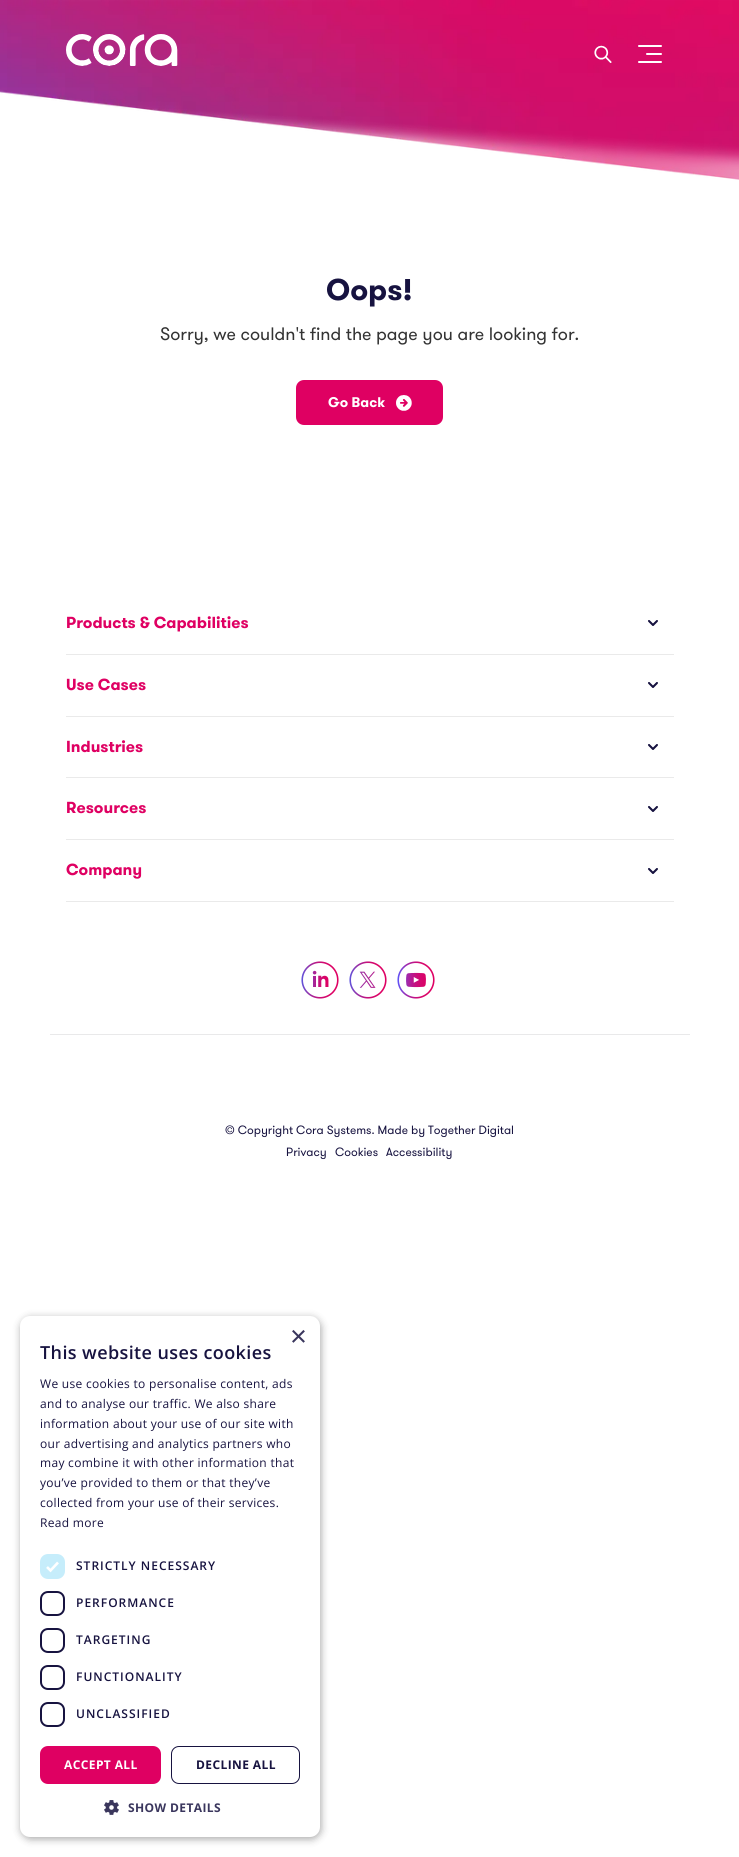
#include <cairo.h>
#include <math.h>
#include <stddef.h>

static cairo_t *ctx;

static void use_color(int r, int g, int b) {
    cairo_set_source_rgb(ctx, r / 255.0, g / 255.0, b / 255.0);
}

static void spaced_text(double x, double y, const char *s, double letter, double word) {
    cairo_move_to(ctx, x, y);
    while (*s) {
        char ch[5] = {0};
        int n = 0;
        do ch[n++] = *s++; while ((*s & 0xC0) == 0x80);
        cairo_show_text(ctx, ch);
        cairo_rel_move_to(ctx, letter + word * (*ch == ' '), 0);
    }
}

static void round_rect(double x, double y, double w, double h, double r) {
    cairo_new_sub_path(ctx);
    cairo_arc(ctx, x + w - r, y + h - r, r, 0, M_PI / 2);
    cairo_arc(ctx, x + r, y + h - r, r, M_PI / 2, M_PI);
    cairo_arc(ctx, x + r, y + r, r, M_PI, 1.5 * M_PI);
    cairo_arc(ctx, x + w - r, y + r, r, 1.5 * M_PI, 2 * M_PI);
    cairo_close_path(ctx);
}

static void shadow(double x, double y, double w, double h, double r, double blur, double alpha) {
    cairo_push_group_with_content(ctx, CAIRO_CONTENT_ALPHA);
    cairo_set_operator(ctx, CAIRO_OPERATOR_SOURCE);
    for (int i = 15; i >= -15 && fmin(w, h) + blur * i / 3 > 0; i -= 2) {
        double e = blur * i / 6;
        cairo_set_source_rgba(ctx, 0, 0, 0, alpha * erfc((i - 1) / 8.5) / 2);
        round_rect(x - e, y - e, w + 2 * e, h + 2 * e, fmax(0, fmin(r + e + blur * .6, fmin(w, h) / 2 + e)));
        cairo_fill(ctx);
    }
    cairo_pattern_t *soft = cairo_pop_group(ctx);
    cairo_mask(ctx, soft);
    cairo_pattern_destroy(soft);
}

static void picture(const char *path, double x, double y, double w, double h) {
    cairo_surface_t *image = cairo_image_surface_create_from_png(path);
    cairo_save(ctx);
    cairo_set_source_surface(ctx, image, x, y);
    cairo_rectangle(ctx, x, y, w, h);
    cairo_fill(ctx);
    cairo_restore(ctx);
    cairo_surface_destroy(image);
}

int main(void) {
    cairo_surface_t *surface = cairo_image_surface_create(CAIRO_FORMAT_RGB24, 739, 1857);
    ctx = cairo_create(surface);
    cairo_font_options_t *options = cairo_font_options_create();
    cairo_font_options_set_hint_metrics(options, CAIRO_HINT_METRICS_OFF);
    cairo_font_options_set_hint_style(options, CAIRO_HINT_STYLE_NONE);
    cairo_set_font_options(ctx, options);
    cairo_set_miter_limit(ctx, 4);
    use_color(255, 255, 255);
    cairo_paint(ctx);
    picture("img1.png", 0, 0, 739, 180);
    picture("img2.png", 66, 34, 112, 32);
    picture("img3.png", 594, 45, 18, 18);
    use_color(255, 255, 255);
    round_rect(638, 45, 24, 2, 1);
    cairo_fill(ctx);
    round_rect(646, 53, 16, 2, 1);
    cairo_fill(ctx);
    round_rect(638, 61, 24, 2, 1);
    cairo_fill(ctx);
    cairo_select_font_face(ctx, "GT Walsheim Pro", CAIRO_FONT_SLANT_NORMAL, CAIRO_FONT_WEIGHT_BOLD);
    cairo_set_font_size(ctx, 30);
    use_color(23, 19, 64);
    cairo_move_to(ctx, 326, 300);
    cairo_show_text(ctx, "Oops!");
    cairo_select_font_face(ctx, "GT Walsheim Pro", CAIRO_FONT_SLANT_NORMAL, CAIRO_FONT_WEIGHT_NORMAL);
    cairo_set_font_size(ctx, 18);
    use_color(51, 51, 51);
    cairo_move_to(ctx, 160, 340);
    cairo_show_text(ctx, "Sorry, we couldn't find the page you are looking for.");
    use_color(223, 0, 98);
    round_rect(296, 380, 147, 45, 8);
    cairo_fill(ctx);
    cairo_select_font_face(ctx, "GT Walsheim Pro", CAIRO_FONT_SLANT_NORMAL, CAIRO_FONT_WEIGHT_BOLD);
    cairo_set_font_size(ctx, 14);
    use_color(255, 255, 255);
    cairo_move_to(ctx, 328, 407);
    cairo_show_text(ctx, "Go Back");
    picture("img4.png", 396, 395, 16, 16);
    use_color(234, 234, 234);
    cairo_rectangle(ctx, 66, 654, 608, 1);
    cairo_fill(ctx);
    cairo_set_font_size(ctx, 16);
    use_color(223, 0, 98);
    cairo_move_to(ctx, 66, 628);
    cairo_show_text(ctx, "Products & Capabilities");
    picture("img5.png", 648, 620, 10, 6);
    use_color(234, 234, 234);
    cairo_rectangle(ctx, 66, 716, 608, 1);
    cairo_fill(ctx);
    use_color(223, 0, 98);
    cairo_move_to(ctx, 66, 690);
    cairo_show_text(ctx, "Use Cases");
    picture("img5.png", 648, 682, 10, 6);
    use_color(234, 234, 234);
    cairo_rectangle(ctx, 66, 777, 608, 1);
    cairo_fill(ctx);
    use_color(223, 0, 98);
    cairo_move_to(ctx, 66, 752);
    cairo_show_text(ctx, "Industries");
    picture("img5.png", 648, 744, 10, 6);
    use_color(234, 234, 234);
    cairo_rectangle(ctx, 66, 839, 608, 1);
    cairo_fill(ctx);
    use_color(223, 0, 98);
    cairo_move_to(ctx, 66, 813);
    cairo_show_text(ctx, "Resources");
    picture("img5.png", 648, 806, 10, 6);
    use_color(234, 234, 234);
    cairo_rectangle(ctx, 66, 901, 608, 1);
    cairo_fill(ctx);
    use_color(223, 0, 98);
    cairo_move_to(ctx, 66, 875);
    cairo_show_text(ctx, "Company");
    picture("img5.png", 648, 868, 10, 6);
    picture("img6.png", 301, 961, 38, 38);
    picture("img7.png", 349, 961, 38, 38);
    picture("img8.png", 397, 961, 38, 38);
    use_color(233, 233, 234);
    cairo_rectangle(ctx, 50, 1034, 640, 1);
    cairo_fill(ctx);
    cairo_select_font_face(ctx, "GT Walsheim Pro", CAIRO_FONT_SLANT_NORMAL, CAIRO_FONT_WEIGHT_NORMAL);
    cairo_set_font_size(ctx, 12);
    use_color(23, 19, 64);
    cairo_move_to(ctx, 225, 1134);
    cairo_show_text(ctx, "© Copyright Cora Systems. Made by Together Digital");
    cairo_move_to(ctx, 286, 1156);
    cairo_show_text(ctx, "Privacy");
    cairo_move_to(ctx, 335, 1156);
    cairo_show_text(ctx, "Cookies");
    cairo_move_to(ctx, 386, 1156);
    cairo_show_text(ctx, "Accessibility");
    use_color(0, 0, 0);
    shadow(21, 1318, 300, 521, 10, 4, 0.35);
    use_color(255, 255, 255);
    round_rect(20, 1316, 300, 521, 10);
    cairo_fill(ctx);
    cairo_select_font_face(ctx, "Liberation Sans", CAIRO_FONT_SLANT_NORMAL, CAIRO_FONT_WEIGHT_NORMAL);
    cairo_set_font_size(ctx, 29);
    use_color(58, 54, 93);
    cairo_move_to(ctx, 290, 1346);
    cairo_show_text(ctx, "×");
    cairo_select_font_face(ctx, "Open Sans SemiBold", CAIRO_FONT_SLANT_NORMAL, CAIRO_FONT_WEIGHT_NORMAL);
    cairo_set_font_size(ctx, 18);
    use_color(23, 19, 64);
    spaced_text(40, 1359, "This website uses cookies", 0.4, 0);
    cairo_select_font_face(ctx, "Open Sans", CAIRO_FONT_SLANT_NORMAL, CAIRO_FONT_WEIGHT_NORMAL);
    cairo_set_font_size(ctx, 12);
    spaced_text(40, 1388, "We use cookies to personalise content, ads", 0.3, 0);
    spaced_text(40, 1408, "and to analyse our traffic. We also share", 0.3, 0);
    spaced_text(40, 1428, "information about your use of our site with", 0.3, 0);
    spaced_text(40, 1448, "our advertising and analytics partners who", 0.3, 0);
    spaced_text(40, 1467, "may combine it with other information that", 0.3, 0);
    spaced_text(40, 1487, "you’ve provided to them or that they’ve", 0.3, 0);
    spaced_text(40, 1507, "collected from your use of their services.", 0.3, 0);
    spaced_text(40, 1527, "Read more", 0.3, 0);
    use_color(198, 237, 251);
    round_rect(40, 1554, 25, 25, 8);
    cairo_fill(ctx);
    cairo_new_path(ctx);
    cairo_move_to(ctx, 47, 1567);
    cairo_line_to(ctx, 50.5, 1570.5);
    cairo_line_to(ctx, 58, 1562.5);
    use_color(255, 255, 255);
    cairo_set_line_width(ctx, 2.6);
    cairo_stroke(ctx);
    cairo_select_font_face(ctx, "Open Sans SemiBold", CAIRO_FONT_SLANT_NORMAL, CAIRO_FONT_WEIGHT_NORMAL);
    use_color(23, 19, 64);
    spaced_text(76, 1570, "STRICTLY NECESSARY", 1, 0);
    round_rect(41, 1592, 23, 23, 7);
    cairo_set_line_width(ctx, 2);
    cairo_stroke(ctx);
    spaced_text(76, 1607, "PERFORMANCE", 1, 0);
    round_rect(41, 1629, 23, 23, 7);
    cairo_stroke(ctx);
    spaced_text(76, 1644, "TARGETING", 1, 0);
    round_rect(41, 1666, 23, 23, 7);
    cairo_stroke(ctx);
    spaced_text(76, 1681, "FUNCTIONALITY", 1, 0);
    round_rect(41, 1703, 23, 23, 7);
    cairo_stroke(ctx);
    spaced_text(76, 1718, "UNCLASSIFIED", 1, 0);
    use_color(223, 0, 98);
    round_rect(40, 1746, 121, 38, 8);
    cairo_fill(ctx);
    cairo_select_font_face(ctx, "Open Sans", CAIRO_FONT_SLANT_NORMAL, CAIRO_FONT_WEIGHT_BOLD);
    use_color(255, 255, 255);
    spaced_text(64, 1769, "ACCEPT ALL", 0.4, 0);
    round_rect(171.5, 1746.5, 128, 37, 7.5);
    use_color(23, 19, 64);
    cairo_set_line_width(ctx, 1);
    cairo_stroke(ctx);
    spaced_text(196, 1769, "DECLINE ALL", 0.4, 0);
    picture("img9.png", 104, 1800, 15, 15);
    use_color(58, 54, 93);
    spaced_text(128, 1812, "SHOW DETAILS", 0.4, 0);
    cairo_surface_write_to_png(surface, "result.png");
    cairo_font_options_destroy(options);
    cairo_destroy(ctx);
    cairo_surface_destroy(surface);
    return 0;
}
